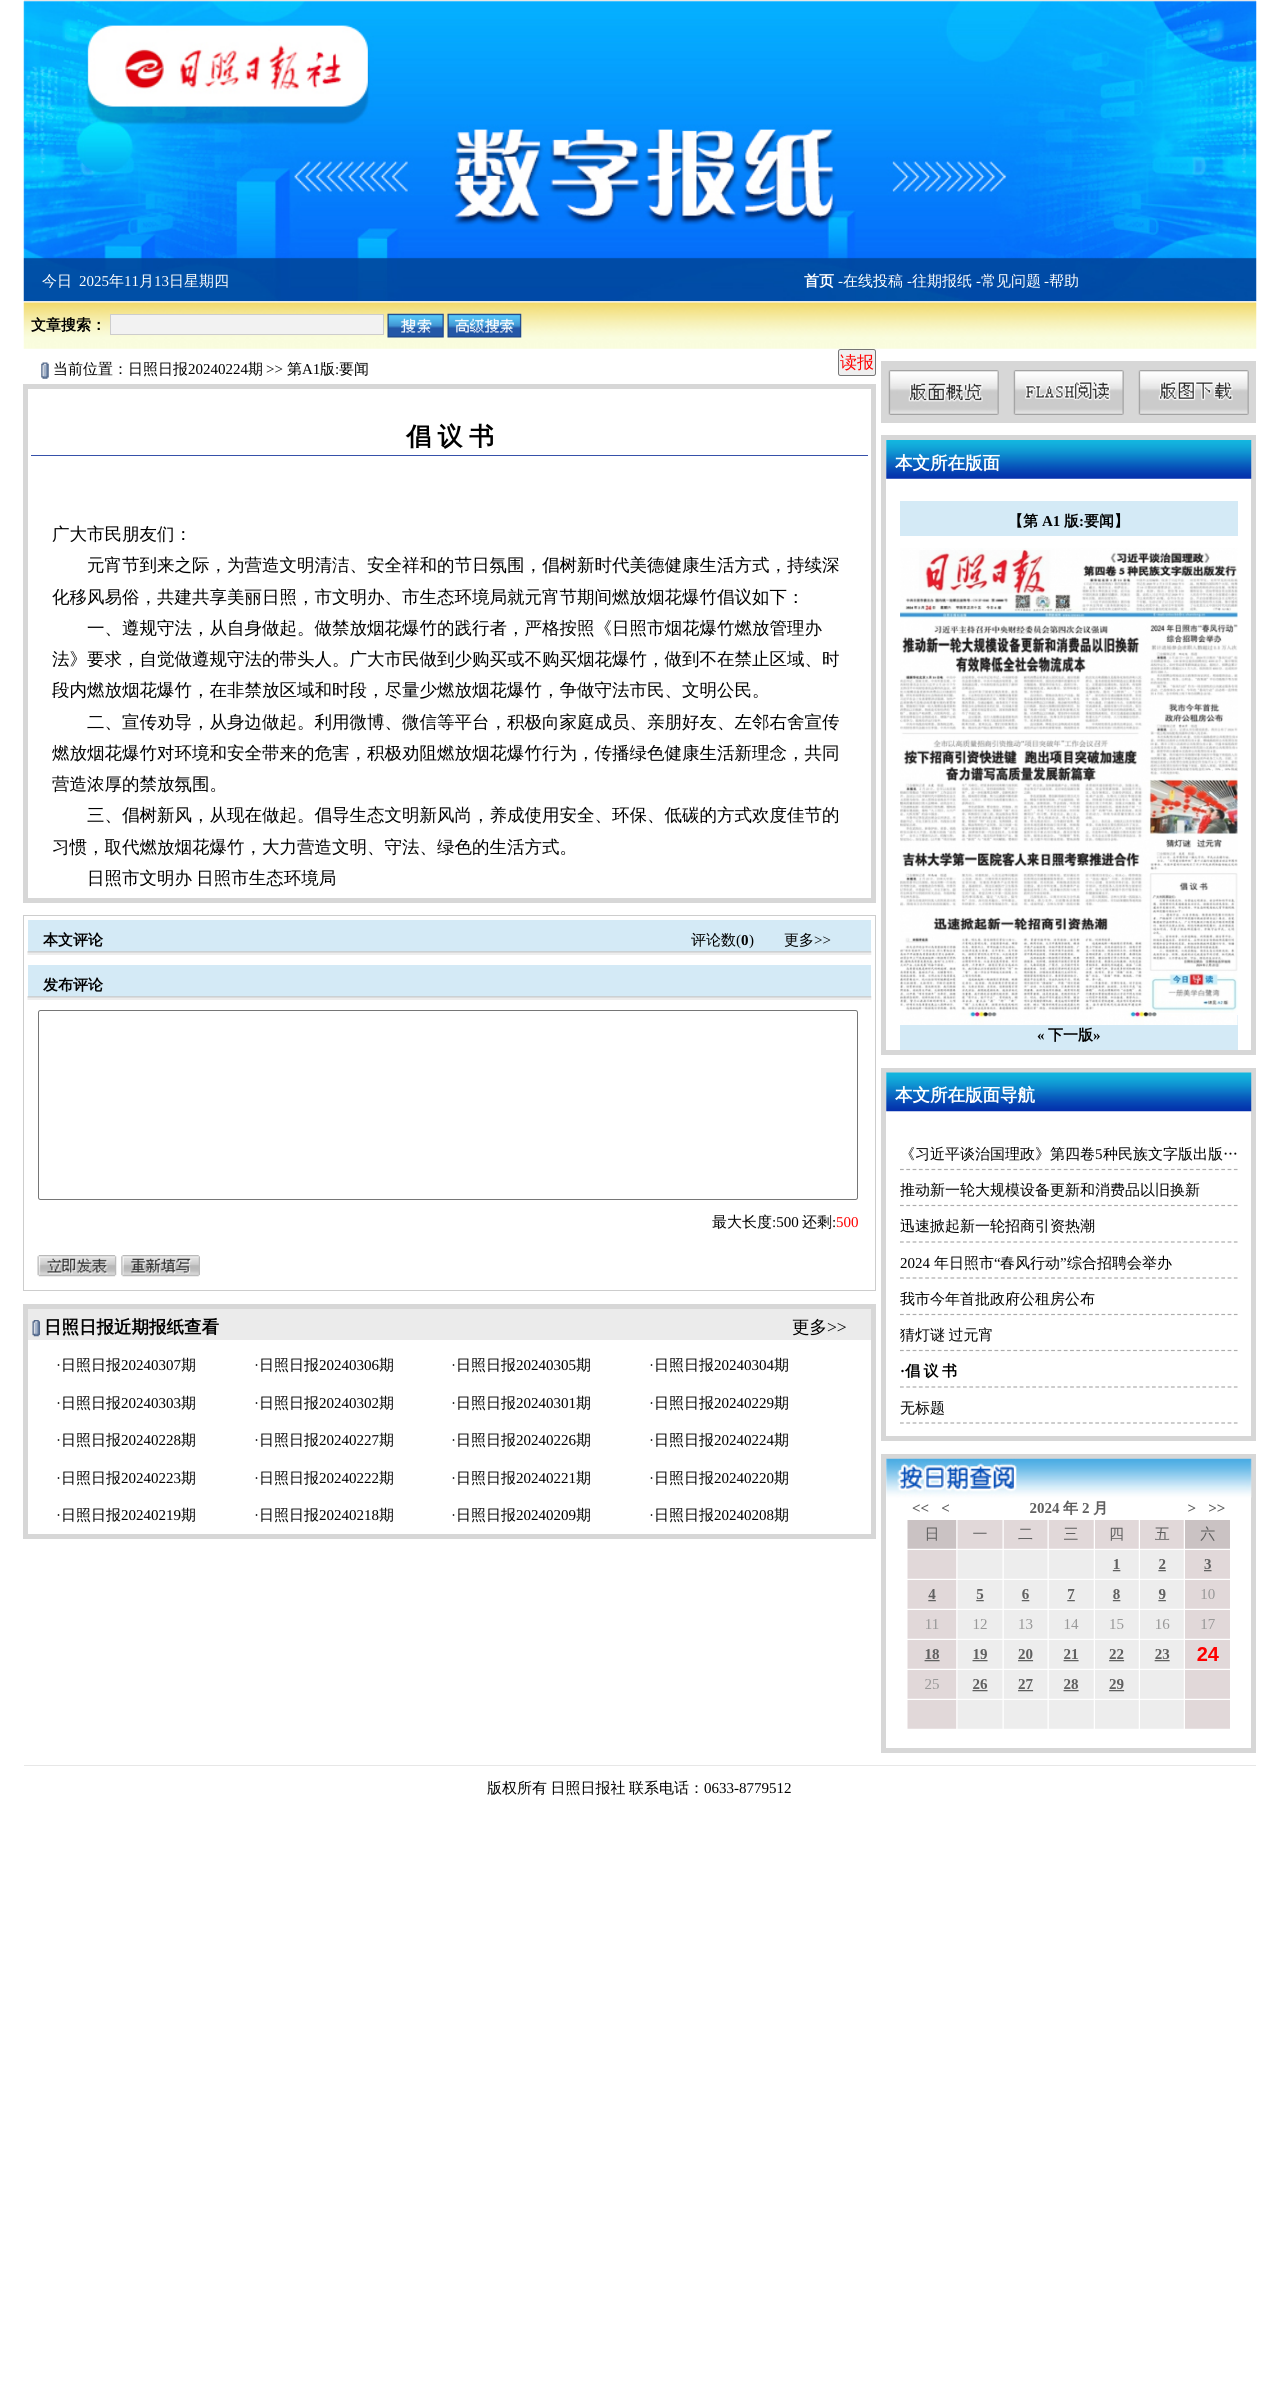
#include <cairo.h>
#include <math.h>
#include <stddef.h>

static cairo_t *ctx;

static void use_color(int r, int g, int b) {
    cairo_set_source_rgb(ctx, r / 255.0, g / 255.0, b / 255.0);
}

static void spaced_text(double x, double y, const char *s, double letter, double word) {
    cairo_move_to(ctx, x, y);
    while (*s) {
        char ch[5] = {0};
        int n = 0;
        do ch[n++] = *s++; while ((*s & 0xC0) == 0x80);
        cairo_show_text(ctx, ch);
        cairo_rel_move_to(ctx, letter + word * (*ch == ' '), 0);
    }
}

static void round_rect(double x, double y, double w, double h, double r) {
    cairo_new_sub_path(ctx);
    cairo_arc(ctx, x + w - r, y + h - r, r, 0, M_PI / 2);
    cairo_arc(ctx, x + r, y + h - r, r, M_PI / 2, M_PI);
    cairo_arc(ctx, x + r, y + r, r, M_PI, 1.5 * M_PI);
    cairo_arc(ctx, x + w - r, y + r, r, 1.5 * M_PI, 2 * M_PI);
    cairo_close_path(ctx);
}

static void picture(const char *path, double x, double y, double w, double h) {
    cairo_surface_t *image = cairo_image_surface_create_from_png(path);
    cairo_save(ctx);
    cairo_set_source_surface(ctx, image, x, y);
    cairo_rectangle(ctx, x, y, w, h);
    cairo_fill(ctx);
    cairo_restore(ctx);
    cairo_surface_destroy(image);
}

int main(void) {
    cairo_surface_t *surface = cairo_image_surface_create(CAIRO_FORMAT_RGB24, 1278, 2408);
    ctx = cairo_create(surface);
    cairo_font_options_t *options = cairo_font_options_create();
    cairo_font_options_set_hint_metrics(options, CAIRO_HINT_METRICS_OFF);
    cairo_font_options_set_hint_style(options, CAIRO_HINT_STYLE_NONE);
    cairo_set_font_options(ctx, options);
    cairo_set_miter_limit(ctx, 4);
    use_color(255, 255, 255);
    cairo_paint(ctx);
    use_color(231, 231, 231);
    cairo_rectangle(ctx, 24, 0, 1232, 1);
    cairo_fill(ctx);
    picture("img1.png", 23, 1, 1234, 301);
    cairo_select_font_face(ctx, "WenQuanYi Zen Hei Medium", CAIRO_FONT_SLANT_NORMAL, CAIRO_FONT_WEIGHT_NORMAL);
    cairo_set_font_size(ctx, 15);
    use_color(255, 255, 255);
    cairo_move_to(ctx, 42, 286);
    cairo_show_text(ctx, "今日");
    cairo_select_font_face(ctx, "Liberation Serif", CAIRO_FONT_SLANT_NORMAL, CAIRO_FONT_WEIGHT_NORMAL);
    cairo_move_to(ctx, 79, 286);
    cairo_show_text(ctx, "2025");
    cairo_select_font_face(ctx, "WenQuanYi Zen Hei Medium", CAIRO_FONT_SLANT_NORMAL, CAIRO_FONT_WEIGHT_NORMAL);
    cairo_move_to(ctx, 109, 286);
    cairo_show_text(ctx, "年");
    cairo_select_font_face(ctx, "Liberation Serif", CAIRO_FONT_SLANT_NORMAL, CAIRO_FONT_WEIGHT_NORMAL);
    cairo_move_to(ctx, 124, 286);
    cairo_show_text(ctx, "11");
    cairo_select_font_face(ctx, "WenQuanYi Zen Hei Medium", CAIRO_FONT_SLANT_NORMAL, CAIRO_FONT_WEIGHT_NORMAL);
    cairo_move_to(ctx, 139, 286);
    cairo_show_text(ctx, "月");
    cairo_select_font_face(ctx, "Liberation Serif", CAIRO_FONT_SLANT_NORMAL, CAIRO_FONT_WEIGHT_NORMAL);
    cairo_move_to(ctx, 154, 286);
    cairo_show_text(ctx, "13");
    cairo_select_font_face(ctx, "WenQuanYi Zen Hei Medium", CAIRO_FONT_SLANT_NORMAL, CAIRO_FONT_WEIGHT_NORMAL);
    cairo_move_to(ctx, 169, 286);
    cairo_show_text(ctx, "日星期四");
    cairo_select_font_face(ctx, "WenQuanYi Zen Hei", CAIRO_FONT_SLANT_NORMAL, CAIRO_FONT_WEIGHT_BOLD);
    cairo_move_to(ctx, 804, 286);
    cairo_show_text(ctx, "首页");
    cairo_select_font_face(ctx, "Liberation Serif", CAIRO_FONT_SLANT_NORMAL, CAIRO_FONT_WEIGHT_NORMAL);
    cairo_move_to(ctx, 838, 286);
    cairo_show_text(ctx, "-");
    cairo_select_font_face(ctx, "WenQuanYi Zen Hei Medium", CAIRO_FONT_SLANT_NORMAL, CAIRO_FONT_WEIGHT_NORMAL);
    cairo_move_to(ctx, 843, 286);
    cairo_show_text(ctx, "在线投稿");
    cairo_select_font_face(ctx, "Liberation Serif", CAIRO_FONT_SLANT_NORMAL, CAIRO_FONT_WEIGHT_NORMAL);
    cairo_move_to(ctx, 907, 286);
    cairo_show_text(ctx, "-");
    cairo_select_font_face(ctx, "WenQuanYi Zen Hei Medium", CAIRO_FONT_SLANT_NORMAL, CAIRO_FONT_WEIGHT_NORMAL);
    cairo_move_to(ctx, 912, 286);
    cairo_show_text(ctx, "往期报纸");
    cairo_select_font_face(ctx, "Liberation Serif", CAIRO_FONT_SLANT_NORMAL, CAIRO_FONT_WEIGHT_NORMAL);
    cairo_move_to(ctx, 976, 286);
    cairo_show_text(ctx, "-");
    cairo_select_font_face(ctx, "WenQuanYi Zen Hei Medium", CAIRO_FONT_SLANT_NORMAL, CAIRO_FONT_WEIGHT_NORMAL);
    cairo_move_to(ctx, 981, 286);
    cairo_show_text(ctx, "常见问题");
    cairo_select_font_face(ctx, "Liberation Serif", CAIRO_FONT_SLANT_NORMAL, CAIRO_FONT_WEIGHT_NORMAL);
    cairo_move_to(ctx, 1044, 286);
    cairo_show_text(ctx, "-");
    cairo_select_font_face(ctx, "WenQuanYi Zen Hei Medium", CAIRO_FONT_SLANT_NORMAL, CAIRO_FONT_WEIGHT_NORMAL);
    cairo_move_to(ctx, 1049, 286);
    cairo_show_text(ctx, "帮助");
    use_color(231, 231, 231);
    cairo_rectangle(ctx, 24, 301, 1232, 1);
    cairo_fill(ctx);
    picture("img2.png", 23, 302, 1234, 47);
    cairo_select_font_face(ctx, "WenQuanYi Zen Hei", CAIRO_FONT_SLANT_NORMAL, CAIRO_FONT_WEIGHT_BOLD);
    use_color(0, 0, 0);
    cairo_move_to(ctx, 31, 330);
    cairo_show_text(ctx, "文章搜索：");
    use_color(242, 242, 242);
    cairo_rectangle(ctx, 110.5, 314.5, 273, 20);
    cairo_fill_preserve(ctx);
    use_color(205, 205, 205);
    cairo_set_line_width(ctx, 1);
    cairo_stroke(ctx);
    picture("img3.png", 387, 313, 57, 25);
    picture("img4.png", 447, 313, 75, 25);
    picture("img5.png", 41, 362, 8, 17);
    cairo_select_font_face(ctx, "WenQuanYi Zen Hei Medium", CAIRO_FONT_SLANT_NORMAL, CAIRO_FONT_WEIGHT_NORMAL);
    use_color(0, 0, 0);
    cairo_move_to(ctx, 53, 374);
    cairo_show_text(ctx, "当前位置：日照日报");
    cairo_select_font_face(ctx, "Liberation Serif", CAIRO_FONT_SLANT_NORMAL, CAIRO_FONT_WEIGHT_NORMAL);
    cairo_move_to(ctx, 188, 374);
    cairo_show_text(ctx, "20240224");
    cairo_select_font_face(ctx, "WenQuanYi Zen Hei Medium", CAIRO_FONT_SLANT_NORMAL, CAIRO_FONT_WEIGHT_NORMAL);
    cairo_move_to(ctx, 248, 374);
    cairo_show_text(ctx, "期");
    cairo_select_font_face(ctx, "Liberation Serif", CAIRO_FONT_SLANT_NORMAL, CAIRO_FONT_WEIGHT_NORMAL);
    cairo_move_to(ctx, 266, 374);
    cairo_show_text(ctx, ">>");
    cairo_select_font_face(ctx, "WenQuanYi Zen Hei Medium", CAIRO_FONT_SLANT_NORMAL, CAIRO_FONT_WEIGHT_NORMAL);
    cairo_move_to(ctx, 287, 374);
    cairo_show_text(ctx, "第");
    cairo_select_font_face(ctx, "Liberation Serif", CAIRO_FONT_SLANT_NORMAL, CAIRO_FONT_WEIGHT_NORMAL);
    cairo_move_to(ctx, 302, 374);
    cairo_show_text(ctx, "A1");
    cairo_select_font_face(ctx, "WenQuanYi Zen Hei Medium", CAIRO_FONT_SLANT_NORMAL, CAIRO_FONT_WEIGHT_NORMAL);
    cairo_move_to(ctx, 320, 374);
    cairo_show_text(ctx, "版");
    cairo_select_font_face(ctx, "Liberation Serif", CAIRO_FONT_SLANT_NORMAL, CAIRO_FONT_WEIGHT_NORMAL);
    cairo_move_to(ctx, 335, 374);
    cairo_show_text(ctx, ":");
    cairo_select_font_face(ctx, "WenQuanYi Zen Hei Medium", CAIRO_FONT_SLANT_NORMAL, CAIRO_FONT_WEIGHT_NORMAL);
    cairo_move_to(ctx, 339, 374);
    cairo_show_text(ctx, "要闻");
    use_color(239, 239, 239);
    round_rect(838.5, 349.5, 37, 26, 2);
    cairo_fill_preserve(ctx);
    use_color(118, 118, 118);
    cairo_stroke(ctx);
    cairo_set_font_size(ctx, 17);
    use_color(255, 0, 0);
    cairo_move_to(ctx, 840, 368);
    cairo_show_text(ctx, "读报");
    cairo_rectangle(ctx, 25.5, 386.5, 848, 514);
    use_color(215, 215, 215);
    cairo_set_line_width(ctx, 5);
    cairo_stroke(ctx);
    cairo_select_font_face(ctx, "WenQuanYi Zen Hei", CAIRO_FONT_SLANT_NORMAL, CAIRO_FONT_WEIGHT_BOLD);
    cairo_set_font_size(ctx, 25);
    use_color(0, 0, 0);
    spaced_text(406, 445, "倡 议 书", 0, -1);
    use_color(54, 81, 170);
    cairo_rectangle(ctx, 31, 455, 837, 1);
    cairo_fill(ctx);
    cairo_select_font_face(ctx, "WenQuanYi Zen Hei Medium", CAIRO_FONT_SLANT_NORMAL, CAIRO_FONT_WEIGHT_NORMAL);
    cairo_set_font_size(ctx, 17.5);
    use_color(0, 0, 0);
    cairo_move_to(ctx, 52, 540);
    cairo_show_text(ctx, "广大市民朋友们：");
    cairo_move_to(ctx, 87, 571);
    cairo_show_text(ctx, "元宵节到来之际，为营造文明清洁、安全祥和的节日氛围，倡树新时代美德健康生活方式，持续深");
    cairo_move_to(ctx, 52, 603);
    cairo_show_text(ctx, "化移风易俗，共建共享美丽日照，市文明办、市生态环境局就元宵节期间燃放烟花爆竹倡议如下：");
    cairo_move_to(ctx, 87, 634);
    cairo_show_text(ctx, "一、遵规守法，从自身做起。做禁放烟花爆竹的践行者，严格按照《日照市烟花爆竹燃放管理办");
    cairo_move_to(ctx, 52, 665);
    cairo_show_text(ctx, "法》要求，自觉做遵规守法的带头人。广大市民做到少购买或不购买烟花爆竹，做到不在禁止区域、时");
    cairo_move_to(ctx, 52, 696);
    cairo_show_text(ctx, "段内燃放烟花爆竹，在非禁放区域和时段，尽量少燃放烟花爆竹，争做守法市民、文明公民。");
    cairo_move_to(ctx, 87, 728);
    cairo_show_text(ctx, "二、宣传劝导，从身边做起。利用微博、微信等平台，积极向家庭成员、亲朋好友、左邻右舍宣传");
    cairo_move_to(ctx, 52, 759);
    cairo_show_text(ctx, "燃放烟花爆竹对环境和安全带来的危害，积极劝阻燃放烟花爆竹行为，传播绿色健康生活新理念，共同");
    cairo_move_to(ctx, 52, 790);
    cairo_show_text(ctx, "营造浓厚的禁放氛围。");
    cairo_move_to(ctx, 87, 821);
    cairo_show_text(ctx, "三、倡树新风，从现在做起。倡导生态文明新风尚，养成使用安全、环保、低碳的方式欢度佳节的");
    cairo_move_to(ctx, 52, 853);
    cairo_show_text(ctx, "习惯，取代燃放烟花爆竹，大力营造文明、守法、绿色的生活方式。");
    spaced_text(87, 884, "日照市文明办 日照市生态环境局", 0, -1);
    cairo_rectangle(ctx, 23.5, 915.5, 852, 375);
    use_color(205, 205, 205);
    cairo_set_line_width(ctx, 1);
    cairo_stroke(ctx);
    use_color(212, 234, 246);
    cairo_rectangle(ctx, 28, 920, 843, 32);
    cairo_fill(ctx);
    picture("img6.png", 27, 951, 845, 4);
    cairo_select_font_face(ctx, "WenQuanYi Zen Hei", CAIRO_FONT_SLANT_NORMAL, CAIRO_FONT_WEIGHT_BOLD);
    cairo_set_font_size(ctx, 15);
    use_color(0, 0, 0);
    cairo_move_to(ctx, 43, 945);
    cairo_show_text(ctx, "本文评论");
    cairo_select_font_face(ctx, "WenQuanYi Zen Hei Medium", CAIRO_FONT_SLANT_NORMAL, CAIRO_FONT_WEIGHT_NORMAL);
    cairo_move_to(ctx, 691, 945);
    cairo_show_text(ctx, "评论数");
    cairo_select_font_face(ctx, "Liberation Serif", CAIRO_FONT_SLANT_NORMAL, CAIRO_FONT_WEIGHT_NORMAL);
    cairo_move_to(ctx, 736, 945);
    cairo_show_text(ctx, "(");
    cairo_select_font_face(ctx, "Liberation Serif", CAIRO_FONT_SLANT_NORMAL, CAIRO_FONT_WEIGHT_BOLD);
    cairo_move_to(ctx, 741, 945);
    cairo_show_text(ctx, "0");
    cairo_select_font_face(ctx, "Liberation Serif", CAIRO_FONT_SLANT_NORMAL, CAIRO_FONT_WEIGHT_NORMAL);
    cairo_move_to(ctx, 749, 945);
    cairo_show_text(ctx, ")");
    cairo_select_font_face(ctx, "WenQuanYi Zen Hei Medium", CAIRO_FONT_SLANT_NORMAL, CAIRO_FONT_WEIGHT_NORMAL);
    cairo_move_to(ctx, 784, 945);
    cairo_show_text(ctx, "更多");
    cairo_select_font_face(ctx, "Liberation Serif", CAIRO_FONT_SLANT_NORMAL, CAIRO_FONT_WEIGHT_NORMAL);
    cairo_move_to(ctx, 814, 945);
    cairo_show_text(ctx, ">>");
    use_color(212, 234, 246);
    cairo_rectangle(ctx, 28, 965, 843, 32);
    cairo_fill(ctx);
    picture("img6.png", 27, 996, 845, 4);
    cairo_select_font_face(ctx, "WenQuanYi Zen Hei", CAIRO_FONT_SLANT_NORMAL, CAIRO_FONT_WEIGHT_BOLD);
    use_color(0, 0, 0);
    cairo_move_to(ctx, 43, 990);
    cairo_show_text(ctx, "发布评论");
    round_rect(38.5, 1010.5, 819, 189, 2);
    use_color(118, 118, 118);
    cairo_stroke(ctx);
    cairo_select_font_face(ctx, "WenQuanYi Zen Hei Medium", CAIRO_FONT_SLANT_NORMAL, CAIRO_FONT_WEIGHT_NORMAL);
    use_color(0, 0, 0);
    cairo_move_to(ctx, 712, 1227);
    cairo_show_text(ctx, "最大长度");
    cairo_select_font_face(ctx, "Liberation Serif", CAIRO_FONT_SLANT_NORMAL, CAIRO_FONT_WEIGHT_NORMAL);
    cairo_move_to(ctx, 772, 1227);
    cairo_show_text(ctx, ":500");
    cairo_select_font_face(ctx, "WenQuanYi Zen Hei Medium", CAIRO_FONT_SLANT_NORMAL, CAIRO_FONT_WEIGHT_NORMAL);
    cairo_move_to(ctx, 802, 1227);
    cairo_show_text(ctx, "还剩");
    cairo_select_font_face(ctx, "Liberation Serif", CAIRO_FONT_SLANT_NORMAL, CAIRO_FONT_WEIGHT_NORMAL);
    cairo_move_to(ctx, 832, 1227);
    cairo_show_text(ctx, ":");
    use_color(255, 0, 0);
    cairo_move_to(ctx, 836, 1227);
    cairo_show_text(ctx, "500");
    picture("img7.png", 37, 1255, 80, 22);
    picture("img8.png", 121, 1255, 79, 22);
    cairo_rectangle(ctx, 25.5, 1306.5, 848, 230);
    use_color(215, 215, 215);
    cairo_set_line_width(ctx, 5);
    cairo_stroke(ctx);
    use_color(235, 235, 235);
    cairo_rectangle(ctx, 28, 1309, 843, 31);
    cairo_fill(ctx);
    picture("img9.png", 32, 1320, 8, 17);
    cairo_select_font_face(ctx, "WenQuanYi Zen Hei", CAIRO_FONT_SLANT_NORMAL, CAIRO_FONT_WEIGHT_BOLD);
    cairo_set_font_size(ctx, 17.5);
    use_color(0, 0, 0);
    cairo_move_to(ctx, 44, 1333);
    cairo_show_text(ctx, "日照日报近期报纸查看");
    cairo_select_font_face(ctx, "WenQuanYi Zen Hei Medium", CAIRO_FONT_SLANT_NORMAL, CAIRO_FONT_WEIGHT_NORMAL);
    cairo_move_to(ctx, 792, 1333);
    cairo_show_text(ctx, "更多");
    cairo_select_font_face(ctx, "Liberation Serif", CAIRO_FONT_SLANT_NORMAL, CAIRO_FONT_WEIGHT_NORMAL);
    cairo_move_to(ctx, 827, 1333);
    cairo_show_text(ctx, ">>");
    cairo_set_font_size(ctx, 15);
    cairo_move_to(ctx, 56, 1370);
    cairo_show_text(ctx, "·");
    cairo_select_font_face(ctx, "WenQuanYi Zen Hei Medium", CAIRO_FONT_SLANT_NORMAL, CAIRO_FONT_WEIGHT_NORMAL);
    cairo_move_to(ctx, 61, 1370);
    cairo_show_text(ctx, "日照日报");
    cairo_select_font_face(ctx, "Liberation Serif", CAIRO_FONT_SLANT_NORMAL, CAIRO_FONT_WEIGHT_NORMAL);
    cairo_move_to(ctx, 121, 1370);
    cairo_show_text(ctx, "20240307");
    cairo_select_font_face(ctx, "WenQuanYi Zen Hei Medium", CAIRO_FONT_SLANT_NORMAL, CAIRO_FONT_WEIGHT_NORMAL);
    cairo_move_to(ctx, 181, 1370);
    cairo_show_text(ctx, "期");
    cairo_select_font_face(ctx, "Liberation Serif", CAIRO_FONT_SLANT_NORMAL, CAIRO_FONT_WEIGHT_NORMAL);
    cairo_move_to(ctx, 254, 1370);
    cairo_show_text(ctx, "·");
    cairo_select_font_face(ctx, "WenQuanYi Zen Hei Medium", CAIRO_FONT_SLANT_NORMAL, CAIRO_FONT_WEIGHT_NORMAL);
    cairo_move_to(ctx, 259, 1370);
    cairo_show_text(ctx, "日照日报");
    cairo_select_font_face(ctx, "Liberation Serif", CAIRO_FONT_SLANT_NORMAL, CAIRO_FONT_WEIGHT_NORMAL);
    cairo_move_to(ctx, 319, 1370);
    cairo_show_text(ctx, "20240306");
    cairo_select_font_face(ctx, "WenQuanYi Zen Hei Medium", CAIRO_FONT_SLANT_NORMAL, CAIRO_FONT_WEIGHT_NORMAL);
    cairo_move_to(ctx, 379, 1370);
    cairo_show_text(ctx, "期");
    cairo_select_font_face(ctx, "Liberation Serif", CAIRO_FONT_SLANT_NORMAL, CAIRO_FONT_WEIGHT_NORMAL);
    cairo_move_to(ctx, 451, 1370);
    cairo_show_text(ctx, "·");
    cairo_select_font_face(ctx, "WenQuanYi Zen Hei Medium", CAIRO_FONT_SLANT_NORMAL, CAIRO_FONT_WEIGHT_NORMAL);
    cairo_move_to(ctx, 456, 1370);
    cairo_show_text(ctx, "日照日报");
    cairo_select_font_face(ctx, "Liberation Serif", CAIRO_FONT_SLANT_NORMAL, CAIRO_FONT_WEIGHT_NORMAL);
    cairo_move_to(ctx, 516, 1370);
    cairo_show_text(ctx, "20240305");
    cairo_select_font_face(ctx, "WenQuanYi Zen Hei Medium", CAIRO_FONT_SLANT_NORMAL, CAIRO_FONT_WEIGHT_NORMAL);
    cairo_move_to(ctx, 576, 1370);
    cairo_show_text(ctx, "期");
    cairo_select_font_face(ctx, "Liberation Serif", CAIRO_FONT_SLANT_NORMAL, CAIRO_FONT_WEIGHT_NORMAL);
    cairo_move_to(ctx, 649, 1370);
    cairo_show_text(ctx, "·");
    cairo_select_font_face(ctx, "WenQuanYi Zen Hei Medium", CAIRO_FONT_SLANT_NORMAL, CAIRO_FONT_WEIGHT_NORMAL);
    cairo_move_to(ctx, 654, 1370);
    cairo_show_text(ctx, "日照日报");
    cairo_select_font_face(ctx, "Liberation Serif", CAIRO_FONT_SLANT_NORMAL, CAIRO_FONT_WEIGHT_NORMAL);
    cairo_move_to(ctx, 714, 1370);
    cairo_show_text(ctx, "20240304");
    cairo_select_font_face(ctx, "WenQuanYi Zen Hei Medium", CAIRO_FONT_SLANT_NORMAL, CAIRO_FONT_WEIGHT_NORMAL);
    cairo_move_to(ctx, 774, 1370);
    cairo_show_text(ctx, "期");
    cairo_select_font_face(ctx, "Liberation Serif", CAIRO_FONT_SLANT_NORMAL, CAIRO_FONT_WEIGHT_NORMAL);
    cairo_move_to(ctx, 56, 1408);
    cairo_show_text(ctx, "·");
    cairo_select_font_face(ctx, "WenQuanYi Zen Hei Medium", CAIRO_FONT_SLANT_NORMAL, CAIRO_FONT_WEIGHT_NORMAL);
    cairo_move_to(ctx, 61, 1408);
    cairo_show_text(ctx, "日照日报");
    cairo_select_font_face(ctx, "Liberation Serif", CAIRO_FONT_SLANT_NORMAL, CAIRO_FONT_WEIGHT_NORMAL);
    cairo_move_to(ctx, 121, 1408);
    cairo_show_text(ctx, "20240303");
    cairo_select_font_face(ctx, "WenQuanYi Zen Hei Medium", CAIRO_FONT_SLANT_NORMAL, CAIRO_FONT_WEIGHT_NORMAL);
    cairo_move_to(ctx, 181, 1408);
    cairo_show_text(ctx, "期");
    cairo_select_font_face(ctx, "Liberation Serif", CAIRO_FONT_SLANT_NORMAL, CAIRO_FONT_WEIGHT_NORMAL);
    cairo_move_to(ctx, 254, 1408);
    cairo_show_text(ctx, "·");
    cairo_select_font_face(ctx, "WenQuanYi Zen Hei Medium", CAIRO_FONT_SLANT_NORMAL, CAIRO_FONT_WEIGHT_NORMAL);
    cairo_move_to(ctx, 259, 1408);
    cairo_show_text(ctx, "日照日报");
    cairo_select_font_face(ctx, "Liberation Serif", CAIRO_FONT_SLANT_NORMAL, CAIRO_FONT_WEIGHT_NORMAL);
    cairo_move_to(ctx, 319, 1408);
    cairo_show_text(ctx, "20240302");
    cairo_select_font_face(ctx, "WenQuanYi Zen Hei Medium", CAIRO_FONT_SLANT_NORMAL, CAIRO_FONT_WEIGHT_NORMAL);
    cairo_move_to(ctx, 379, 1408);
    cairo_show_text(ctx, "期");
    cairo_select_font_face(ctx, "Liberation Serif", CAIRO_FONT_SLANT_NORMAL, CAIRO_FONT_WEIGHT_NORMAL);
    cairo_move_to(ctx, 451, 1408);
    cairo_show_text(ctx, "·");
    cairo_select_font_face(ctx, "WenQuanYi Zen Hei Medium", CAIRO_FONT_SLANT_NORMAL, CAIRO_FONT_WEIGHT_NORMAL);
    cairo_move_to(ctx, 456, 1408);
    cairo_show_text(ctx, "日照日报");
    cairo_select_font_face(ctx, "Liberation Serif", CAIRO_FONT_SLANT_NORMAL, CAIRO_FONT_WEIGHT_NORMAL);
    cairo_move_to(ctx, 516, 1408);
    cairo_show_text(ctx, "20240301");
    cairo_select_font_face(ctx, "WenQuanYi Zen Hei Medium", CAIRO_FONT_SLANT_NORMAL, CAIRO_FONT_WEIGHT_NORMAL);
    cairo_move_to(ctx, 576, 1408);
    cairo_show_text(ctx, "期");
    cairo_select_font_face(ctx, "Liberation Serif", CAIRO_FONT_SLANT_NORMAL, CAIRO_FONT_WEIGHT_NORMAL);
    cairo_move_to(ctx, 649, 1408);
    cairo_show_text(ctx, "·");
    cairo_select_font_face(ctx, "WenQuanYi Zen Hei Medium", CAIRO_FONT_SLANT_NORMAL, CAIRO_FONT_WEIGHT_NORMAL);
    cairo_move_to(ctx, 654, 1408);
    cairo_show_text(ctx, "日照日报");
    cairo_select_font_face(ctx, "Liberation Serif", CAIRO_FONT_SLANT_NORMAL, CAIRO_FONT_WEIGHT_NORMAL);
    cairo_move_to(ctx, 714, 1408);
    cairo_show_text(ctx, "20240229");
    cairo_select_font_face(ctx, "WenQuanYi Zen Hei Medium", CAIRO_FONT_SLANT_NORMAL, CAIRO_FONT_WEIGHT_NORMAL);
    cairo_move_to(ctx, 774, 1408);
    cairo_show_text(ctx, "期");
    cairo_select_font_face(ctx, "Liberation Serif", CAIRO_FONT_SLANT_NORMAL, CAIRO_FONT_WEIGHT_NORMAL);
    cairo_move_to(ctx, 56, 1445);
    cairo_show_text(ctx, "·");
    cairo_select_font_face(ctx, "WenQuanYi Zen Hei Medium", CAIRO_FONT_SLANT_NORMAL, CAIRO_FONT_WEIGHT_NORMAL);
    cairo_move_to(ctx, 61, 1445);
    cairo_show_text(ctx, "日照日报");
    cairo_select_font_face(ctx, "Liberation Serif", CAIRO_FONT_SLANT_NORMAL, CAIRO_FONT_WEIGHT_NORMAL);
    cairo_move_to(ctx, 121, 1445);
    cairo_show_text(ctx, "20240228");
    cairo_select_font_face(ctx, "WenQuanYi Zen Hei Medium", CAIRO_FONT_SLANT_NORMAL, CAIRO_FONT_WEIGHT_NORMAL);
    cairo_move_to(ctx, 181, 1445);
    cairo_show_text(ctx, "期");
    cairo_select_font_face(ctx, "Liberation Serif", CAIRO_FONT_SLANT_NORMAL, CAIRO_FONT_WEIGHT_NORMAL);
    cairo_move_to(ctx, 254, 1445);
    cairo_show_text(ctx, "·");
    cairo_select_font_face(ctx, "WenQuanYi Zen Hei Medium", CAIRO_FONT_SLANT_NORMAL, CAIRO_FONT_WEIGHT_NORMAL);
    cairo_move_to(ctx, 259, 1445);
    cairo_show_text(ctx, "日照日报");
    cairo_select_font_face(ctx, "Liberation Serif", CAIRO_FONT_SLANT_NORMAL, CAIRO_FONT_WEIGHT_NORMAL);
    cairo_move_to(ctx, 319, 1445);
    cairo_show_text(ctx, "20240227");
    cairo_select_font_face(ctx, "WenQuanYi Zen Hei Medium", CAIRO_FONT_SLANT_NORMAL, CAIRO_FONT_WEIGHT_NORMAL);
    cairo_move_to(ctx, 379, 1445);
    cairo_show_text(ctx, "期");
    cairo_select_font_face(ctx, "Liberation Serif", CAIRO_FONT_SLANT_NORMAL, CAIRO_FONT_WEIGHT_NORMAL);
    cairo_move_to(ctx, 451, 1445);
    cairo_show_text(ctx, "·");
    cairo_select_font_face(ctx, "WenQuanYi Zen Hei Medium", CAIRO_FONT_SLANT_NORMAL, CAIRO_FONT_WEIGHT_NORMAL);
    cairo_move_to(ctx, 456, 1445);
    cairo_show_text(ctx, "日照日报");
    cairo_select_font_face(ctx, "Liberation Serif", CAIRO_FONT_SLANT_NORMAL, CAIRO_FONT_WEIGHT_NORMAL);
    cairo_move_to(ctx, 516, 1445);
    cairo_show_text(ctx, "20240226");
    cairo_select_font_face(ctx, "WenQuanYi Zen Hei Medium", CAIRO_FONT_SLANT_NORMAL, CAIRO_FONT_WEIGHT_NORMAL);
    cairo_move_to(ctx, 576, 1445);
    cairo_show_text(ctx, "期");
    cairo_select_font_face(ctx, "Liberation Serif", CAIRO_FONT_SLANT_NORMAL, CAIRO_FONT_WEIGHT_NORMAL);
    cairo_move_to(ctx, 649, 1445);
    cairo_show_text(ctx, "·");
    cairo_select_font_face(ctx, "WenQuanYi Zen Hei Medium", CAIRO_FONT_SLANT_NORMAL, CAIRO_FONT_WEIGHT_NORMAL);
    cairo_move_to(ctx, 654, 1445);
    cairo_show_text(ctx, "日照日报");
    cairo_select_font_face(ctx, "Liberation Serif", CAIRO_FONT_SLANT_NORMAL, CAIRO_FONT_WEIGHT_NORMAL);
    cairo_move_to(ctx, 714, 1445);
    cairo_show_text(ctx, "20240224");
    cairo_select_font_face(ctx, "WenQuanYi Zen Hei Medium", CAIRO_FONT_SLANT_NORMAL, CAIRO_FONT_WEIGHT_NORMAL);
    cairo_move_to(ctx, 774, 1445);
    cairo_show_text(ctx, "期");
    cairo_select_font_face(ctx, "Liberation Serif", CAIRO_FONT_SLANT_NORMAL, CAIRO_FONT_WEIGHT_NORMAL);
    cairo_move_to(ctx, 56, 1483);
    cairo_show_text(ctx, "·");
    cairo_select_font_face(ctx, "WenQuanYi Zen Hei Medium", CAIRO_FONT_SLANT_NORMAL, CAIRO_FONT_WEIGHT_NORMAL);
    cairo_move_to(ctx, 61, 1483);
    cairo_show_text(ctx, "日照日报");
    cairo_select_font_face(ctx, "Liberation Serif", CAIRO_FONT_SLANT_NORMAL, CAIRO_FONT_WEIGHT_NORMAL);
    cairo_move_to(ctx, 121, 1483);
    cairo_show_text(ctx, "20240223");
    cairo_select_font_face(ctx, "WenQuanYi Zen Hei Medium", CAIRO_FONT_SLANT_NORMAL, CAIRO_FONT_WEIGHT_NORMAL);
    cairo_move_to(ctx, 181, 1483);
    cairo_show_text(ctx, "期");
    cairo_select_font_face(ctx, "Liberation Serif", CAIRO_FONT_SLANT_NORMAL, CAIRO_FONT_WEIGHT_NORMAL);
    cairo_move_to(ctx, 254, 1483);
    cairo_show_text(ctx, "·");
    cairo_select_font_face(ctx, "WenQuanYi Zen Hei Medium", CAIRO_FONT_SLANT_NORMAL, CAIRO_FONT_WEIGHT_NORMAL);
    cairo_move_to(ctx, 259, 1483);
    cairo_show_text(ctx, "日照日报");
    cairo_select_font_face(ctx, "Liberation Serif", CAIRO_FONT_SLANT_NORMAL, CAIRO_FONT_WEIGHT_NORMAL);
    cairo_move_to(ctx, 319, 1483);
    cairo_show_text(ctx, "20240222");
    cairo_select_font_face(ctx, "WenQuanYi Zen Hei Medium", CAIRO_FONT_SLANT_NORMAL, CAIRO_FONT_WEIGHT_NORMAL);
    cairo_move_to(ctx, 379, 1483);
    cairo_show_text(ctx, "期");
    cairo_select_font_face(ctx, "Liberation Serif", CAIRO_FONT_SLANT_NORMAL, CAIRO_FONT_WEIGHT_NORMAL);
    cairo_move_to(ctx, 451, 1483);
    cairo_show_text(ctx, "·");
    cairo_select_font_face(ctx, "WenQuanYi Zen Hei Medium", CAIRO_FONT_SLANT_NORMAL, CAIRO_FONT_WEIGHT_NORMAL);
    cairo_move_to(ctx, 456, 1483);
    cairo_show_text(ctx, "日照日报");
    cairo_select_font_face(ctx, "Liberation Serif", CAIRO_FONT_SLANT_NORMAL, CAIRO_FONT_WEIGHT_NORMAL);
    cairo_move_to(ctx, 516, 1483);
    cairo_show_text(ctx, "20240221");
    cairo_select_font_face(ctx, "WenQuanYi Zen Hei Medium", CAIRO_FONT_SLANT_NORMAL, CAIRO_FONT_WEIGHT_NORMAL);
    cairo_move_to(ctx, 576, 1483);
    cairo_show_text(ctx, "期");
    cairo_select_font_face(ctx, "Liberation Serif", CAIRO_FONT_SLANT_NORMAL, CAIRO_FONT_WEIGHT_NORMAL);
    cairo_move_to(ctx, 649, 1483);
    cairo_show_text(ctx, "·");
    cairo_select_font_face(ctx, "WenQuanYi Zen Hei Medium", CAIRO_FONT_SLANT_NORMAL, CAIRO_FONT_WEIGHT_NORMAL);
    cairo_move_to(ctx, 654, 1483);
    cairo_show_text(ctx, "日照日报");
    cairo_select_font_face(ctx, "Liberation Serif", CAIRO_FONT_SLANT_NORMAL, CAIRO_FONT_WEIGHT_NORMAL);
    cairo_move_to(ctx, 714, 1483);
    cairo_show_text(ctx, "20240220");
    cairo_select_font_face(ctx, "WenQuanYi Zen Hei Medium", CAIRO_FONT_SLANT_NORMAL, CAIRO_FONT_WEIGHT_NORMAL);
    cairo_move_to(ctx, 774, 1483);
    cairo_show_text(ctx, "期");
    cairo_select_font_face(ctx, "Liberation Serif", CAIRO_FONT_SLANT_NORMAL, CAIRO_FONT_WEIGHT_NORMAL);
    cairo_move_to(ctx, 56, 1520);
    cairo_show_text(ctx, "·");
    cairo_select_font_face(ctx, "WenQuanYi Zen Hei Medium", CAIRO_FONT_SLANT_NORMAL, CAIRO_FONT_WEIGHT_NORMAL);
    cairo_move_to(ctx, 61, 1520);
    cairo_show_text(ctx, "日照日报");
    cairo_select_font_face(ctx, "Liberation Serif", CAIRO_FONT_SLANT_NORMAL, CAIRO_FONT_WEIGHT_NORMAL);
    cairo_move_to(ctx, 121, 1520);
    cairo_show_text(ctx, "20240219");
    cairo_select_font_face(ctx, "WenQuanYi Zen Hei Medium", CAIRO_FONT_SLANT_NORMAL, CAIRO_FONT_WEIGHT_NORMAL);
    cairo_move_to(ctx, 181, 1520);
    cairo_show_text(ctx, "期");
    cairo_select_font_face(ctx, "Liberation Serif", CAIRO_FONT_SLANT_NORMAL, CAIRO_FONT_WEIGHT_NORMAL);
    cairo_move_to(ctx, 254, 1520);
    cairo_show_text(ctx, "·");
    cairo_select_font_face(ctx, "WenQuanYi Zen Hei Medium", CAIRO_FONT_SLANT_NORMAL, CAIRO_FONT_WEIGHT_NORMAL);
    cairo_move_to(ctx, 259, 1520);
    cairo_show_text(ctx, "日照日报");
    cairo_select_font_face(ctx, "Liberation Serif", CAIRO_FONT_SLANT_NORMAL, CAIRO_FONT_WEIGHT_NORMAL);
    cairo_move_to(ctx, 319, 1520);
    cairo_show_text(ctx, "20240218");
    cairo_select_font_face(ctx, "WenQuanYi Zen Hei Medium", CAIRO_FONT_SLANT_NORMAL, CAIRO_FONT_WEIGHT_NORMAL);
    cairo_move_to(ctx, 379, 1520);
    cairo_show_text(ctx, "期");
    cairo_select_font_face(ctx, "Liberation Serif", CAIRO_FONT_SLANT_NORMAL, CAIRO_FONT_WEIGHT_NORMAL);
    cairo_move_to(ctx, 451, 1520);
    cairo_show_text(ctx, "·");
    cairo_select_font_face(ctx, "WenQuanYi Zen Hei Medium", CAIRO_FONT_SLANT_NORMAL, CAIRO_FONT_WEIGHT_NORMAL);
    cairo_move_to(ctx, 456, 1520);
    cairo_show_text(ctx, "日照日报");
    cairo_select_font_face(ctx, "Liberation Serif", CAIRO_FONT_SLANT_NORMAL, CAIRO_FONT_WEIGHT_NORMAL);
    cairo_move_to(ctx, 516, 1520);
    cairo_show_text(ctx, "20240209");
    cairo_select_font_face(ctx, "WenQuanYi Zen Hei Medium", CAIRO_FONT_SLANT_NORMAL, CAIRO_FONT_WEIGHT_NORMAL);
    cairo_move_to(ctx, 576, 1520);
    cairo_show_text(ctx, "期");
    cairo_select_font_face(ctx, "Liberation Serif", CAIRO_FONT_SLANT_NORMAL, CAIRO_FONT_WEIGHT_NORMAL);
    cairo_move_to(ctx, 649, 1520);
    cairo_show_text(ctx, "·");
    cairo_select_font_face(ctx, "WenQuanYi Zen Hei Medium", CAIRO_FONT_SLANT_NORMAL, CAIRO_FONT_WEIGHT_NORMAL);
    cairo_move_to(ctx, 654, 1520);
    cairo_show_text(ctx, "日照日报");
    cairo_select_font_face(ctx, "Liberation Serif", CAIRO_FONT_SLANT_NORMAL, CAIRO_FONT_WEIGHT_NORMAL);
    cairo_move_to(ctx, 714, 1520);
    cairo_show_text(ctx, "20240208");
    cairo_select_font_face(ctx, "WenQuanYi Zen Hei Medium", CAIRO_FONT_SLANT_NORMAL, CAIRO_FONT_WEIGHT_NORMAL);
    cairo_move_to(ctx, 774, 1520);
    cairo_show_text(ctx, "期");
    use_color(215, 215, 215);
    cairo_rectangle(ctx, 881, 361, 375, 62);
    cairo_fill(ctx);
    picture("img10.png", 888, 370, 111, 45);
    picture("img11.png", 1013, 370, 111, 45);
    picture("img12.png", 1138, 370, 111, 45);
    cairo_rectangle(ctx, 883.5, 437.5, 370, 615);
    cairo_stroke(ctx);
    picture("img13.png", 886, 440, 366, 39);
    cairo_select_font_face(ctx, "WenQuanYi Zen Hei", CAIRO_FONT_SLANT_NORMAL, CAIRO_FONT_WEIGHT_BOLD);
    cairo_set_font_size(ctx, 17.5);
    use_color(255, 255, 255);
    cairo_move_to(ctx, 895, 469);
    cairo_show_text(ctx, "本文所在版面");
    use_color(212, 234, 246);
    cairo_rectangle(ctx, 900, 501, 338, 35);
    cairo_fill(ctx);
    cairo_set_font_size(ctx, 15);
    use_color(0, 0, 0);
    cairo_move_to(ctx, 1008, 526);
    cairo_show_text(ctx, "【第");
    cairo_select_font_face(ctx, "Liberation Serif", CAIRO_FONT_SLANT_NORMAL, CAIRO_FONT_WEIGHT_BOLD);
    cairo_move_to(ctx, 1042, 526);
    cairo_show_text(ctx, "A1");
    cairo_select_font_face(ctx, "WenQuanYi Zen Hei", CAIRO_FONT_SLANT_NORMAL, CAIRO_FONT_WEIGHT_BOLD);
    cairo_move_to(ctx, 1064, 526);
    cairo_show_text(ctx, "版");
    cairo_select_font_face(ctx, "Liberation Serif", CAIRO_FONT_SLANT_NORMAL, CAIRO_FONT_WEIGHT_BOLD);
    cairo_move_to(ctx, 1079, 526);
    cairo_show_text(ctx, ":");
    cairo_select_font_face(ctx, "WenQuanYi Zen Hei", CAIRO_FONT_SLANT_NORMAL, CAIRO_FONT_WEIGHT_BOLD);
    cairo_move_to(ctx, 1084, 526);
    cairo_show_text(ctx, "要闻】");
    use_color(212, 234, 246);
    cairo_rectangle(ctx, 900, 1015, 338, 35);
    cairo_fill(ctx);
    picture("img14.png", 900, 548, 338, 477);
    cairo_select_font_face(ctx, "Liberation Serif", CAIRO_FONT_SLANT_NORMAL, CAIRO_FONT_WEIGHT_BOLD);
    use_color(0, 0, 0);
    cairo_move_to(ctx, 1037, 1040);
    cairo_show_text(ctx, "«");
    cairo_select_font_face(ctx, "WenQuanYi Zen Hei", CAIRO_FONT_SLANT_NORMAL, CAIRO_FONT_WEIGHT_BOLD);
    cairo_move_to(ctx, 1048, 1040);
    cairo_show_text(ctx, "下一版");
    cairo_select_font_face(ctx, "Liberation Serif", CAIRO_FONT_SLANT_NORMAL, CAIRO_FONT_WEIGHT_BOLD);
    cairo_move_to(ctx, 1093, 1040);
    cairo_show_text(ctx, "»");
    cairo_rectangle(ctx, 883.5, 1070.5, 370, 368);
    use_color(215, 215, 215);
    cairo_stroke(ctx);
    picture("img15.png", 886, 1072, 366, 40);
    cairo_select_font_face(ctx, "WenQuanYi Zen Hei", CAIRO_FONT_SLANT_NORMAL, CAIRO_FONT_WEIGHT_BOLD);
    cairo_set_font_size(ctx, 17.5);
    use_color(255, 255, 255);
    cairo_move_to(ctx, 895, 1101);
    cairo_show_text(ctx, "本文所在版面导航");
    cairo_new_path(ctx);
    cairo_move_to(ctx, 900, 1169.5);
    cairo_line_to(ctx, 1237.5, 1169.5);
    use_color(172, 172, 172);
    cairo_set_line_width(ctx, 1.2);
    cairo_set_dash(ctx, (double[]){3.75, 2.55}, 2, 0);
    cairo_stroke(ctx);
    cairo_select_font_face(ctx, "WenQuanYi Zen Hei Medium", CAIRO_FONT_SLANT_NORMAL, CAIRO_FONT_WEIGHT_NORMAL);
    cairo_set_font_size(ctx, 15);
    use_color(0, 0, 0);
    cairo_move_to(ctx, 900, 1159);
    cairo_show_text(ctx, "《习近平谈治国理政》第四卷");
    cairo_select_font_face(ctx, "Liberation Serif", CAIRO_FONT_SLANT_NORMAL, CAIRO_FONT_WEIGHT_NORMAL);
    cairo_move_to(ctx, 1095, 1159);
    cairo_show_text(ctx, "5");
    cairo_select_font_face(ctx, "WenQuanYi Zen Hei Medium", CAIRO_FONT_SLANT_NORMAL, CAIRO_FONT_WEIGHT_NORMAL);
    cairo_move_to(ctx, 1103, 1159);
    cairo_show_text(ctx, "种民族文字版出版…");
    cairo_new_path(ctx);
    cairo_move_to(ctx, 900, 1205.5);
    cairo_line_to(ctx, 1237.5, 1205.5);
    use_color(172, 172, 172);
    cairo_stroke(ctx);
    use_color(0, 0, 0);
    cairo_move_to(ctx, 900, 1195);
    cairo_show_text(ctx, "推动新一轮大规模设备更新和消费品以旧换新");
    cairo_new_path(ctx);
    cairo_move_to(ctx, 900, 1242);
    cairo_line_to(ctx, 1237.5, 1242);
    use_color(172, 172, 172);
    cairo_stroke(ctx);
    use_color(0, 0, 0);
    cairo_move_to(ctx, 900, 1231);
    cairo_show_text(ctx, "迅速掀起新一轮招商引资热潮");
    cairo_new_path(ctx);
    cairo_move_to(ctx, 900, 1278);
    cairo_line_to(ctx, 1237.5, 1278);
    use_color(172, 172, 172);
    cairo_stroke(ctx);
    cairo_select_font_face(ctx, "Liberation Serif", CAIRO_FONT_SLANT_NORMAL, CAIRO_FONT_WEIGHT_NORMAL);
    use_color(0, 0, 0);
    cairo_move_to(ctx, 900, 1268);
    cairo_show_text(ctx, "2024");
    cairo_select_font_face(ctx, "WenQuanYi Zen Hei Medium", CAIRO_FONT_SLANT_NORMAL, CAIRO_FONT_WEIGHT_NORMAL);
    cairo_move_to(ctx, 934, 1268);
    cairo_show_text(ctx, "年日照市");
    cairo_select_font_face(ctx, "Liberation Serif", CAIRO_FONT_SLANT_NORMAL, CAIRO_FONT_WEIGHT_NORMAL);
    cairo_move_to(ctx, 994, 1268);
    cairo_show_text(ctx, "“");
    cairo_select_font_face(ctx, "WenQuanYi Zen Hei Medium", CAIRO_FONT_SLANT_NORMAL, CAIRO_FONT_WEIGHT_NORMAL);
    cairo_move_to(ctx, 1000, 1268);
    cairo_show_text(ctx, "春风行动");
    cairo_select_font_face(ctx, "Liberation Serif", CAIRO_FONT_SLANT_NORMAL, CAIRO_FONT_WEIGHT_NORMAL);
    cairo_move_to(ctx, 1060, 1268);
    cairo_show_text(ctx, "”");
    cairo_select_font_face(ctx, "WenQuanYi Zen Hei Medium", CAIRO_FONT_SLANT_NORMAL, CAIRO_FONT_WEIGHT_NORMAL);
    cairo_move_to(ctx, 1067, 1268);
    cairo_show_text(ctx, "综合招聘会举办");
    cairo_new_path(ctx);
    cairo_move_to(ctx, 900, 1314.5);
    cairo_line_to(ctx, 1237.5, 1314.5);
    use_color(172, 172, 172);
    cairo_stroke(ctx);
    use_color(0, 0, 0);
    cairo_move_to(ctx, 900, 1304);
    cairo_show_text(ctx, "我市今年首批政府公租房公布");
    cairo_new_path(ctx);
    cairo_move_to(ctx, 900, 1350.5);
    cairo_line_to(ctx, 1237.5, 1350.5);
    use_color(172, 172, 172);
    cairo_stroke(ctx);
    use_color(0, 0, 0);
    spaced_text(900, 1340, "猜灯谜 过元宵", 0, -1);
    cairo_new_path(ctx);
    cairo_move_to(ctx, 900, 1387);
    cairo_line_to(ctx, 1237.5, 1387);
    use_color(172, 172, 172);
    cairo_stroke(ctx);
    cairo_select_font_face(ctx, "Liberation Serif", CAIRO_FONT_SLANT_NORMAL, CAIRO_FONT_WEIGHT_BOLD);
    use_color(0, 0, 0);
    cairo_move_to(ctx, 900, 1376);
    cairo_show_text(ctx, "·");
    cairo_select_font_face(ctx, "WenQuanYi Zen Hei", CAIRO_FONT_SLANT_NORMAL, CAIRO_FONT_WEIGHT_BOLD);
    spaced_text(905, 1376, "倡 议 书", 0, -1);
    cairo_new_path(ctx);
    cairo_move_to(ctx, 900, 1423);
    cairo_line_to(ctx, 1237.5, 1423);
    use_color(172, 172, 172);
    cairo_stroke(ctx);
    cairo_select_font_face(ctx, "WenQuanYi Zen Hei Medium", CAIRO_FONT_SLANT_NORMAL, CAIRO_FONT_WEIGHT_NORMAL);
    use_color(0, 0, 0);
    cairo_move_to(ctx, 900, 1413);
    cairo_show_text(ctx, "无标题");
    cairo_rectangle(ctx, 883.5, 1456.5, 370, 294);
    use_color(215, 215, 215);
    cairo_set_line_width(ctx, 5);
    cairo_set_dash(ctx, NULL, 0, 0);
    cairo_stroke(ctx);
    picture("img16.png", 886, 1458, 366, 40);
    picture("img17.png", 907, 1500, 323, 229);
    use_color(231, 231, 231);
    cairo_rectangle(ctx, 24, 1765, 1232, 1);
    cairo_fill(ctx);
    use_color(0, 0, 0);
    spaced_text(487, 1793, "版权所有 日照日报社 联系电话：", 0, -1);
    cairo_select_font_face(ctx, "Liberation Serif", CAIRO_FONT_SLANT_NORMAL, CAIRO_FONT_WEIGHT_NORMAL);
    cairo_move_to(ctx, 704, 1793);
    cairo_show_text(ctx, "0633-8779512");
    cairo_surface_write_to_png(surface, "result.png");
    cairo_font_options_destroy(options);
    cairo_destroy(ctx);
    cairo_surface_destroy(surface);
    return 0;
}
